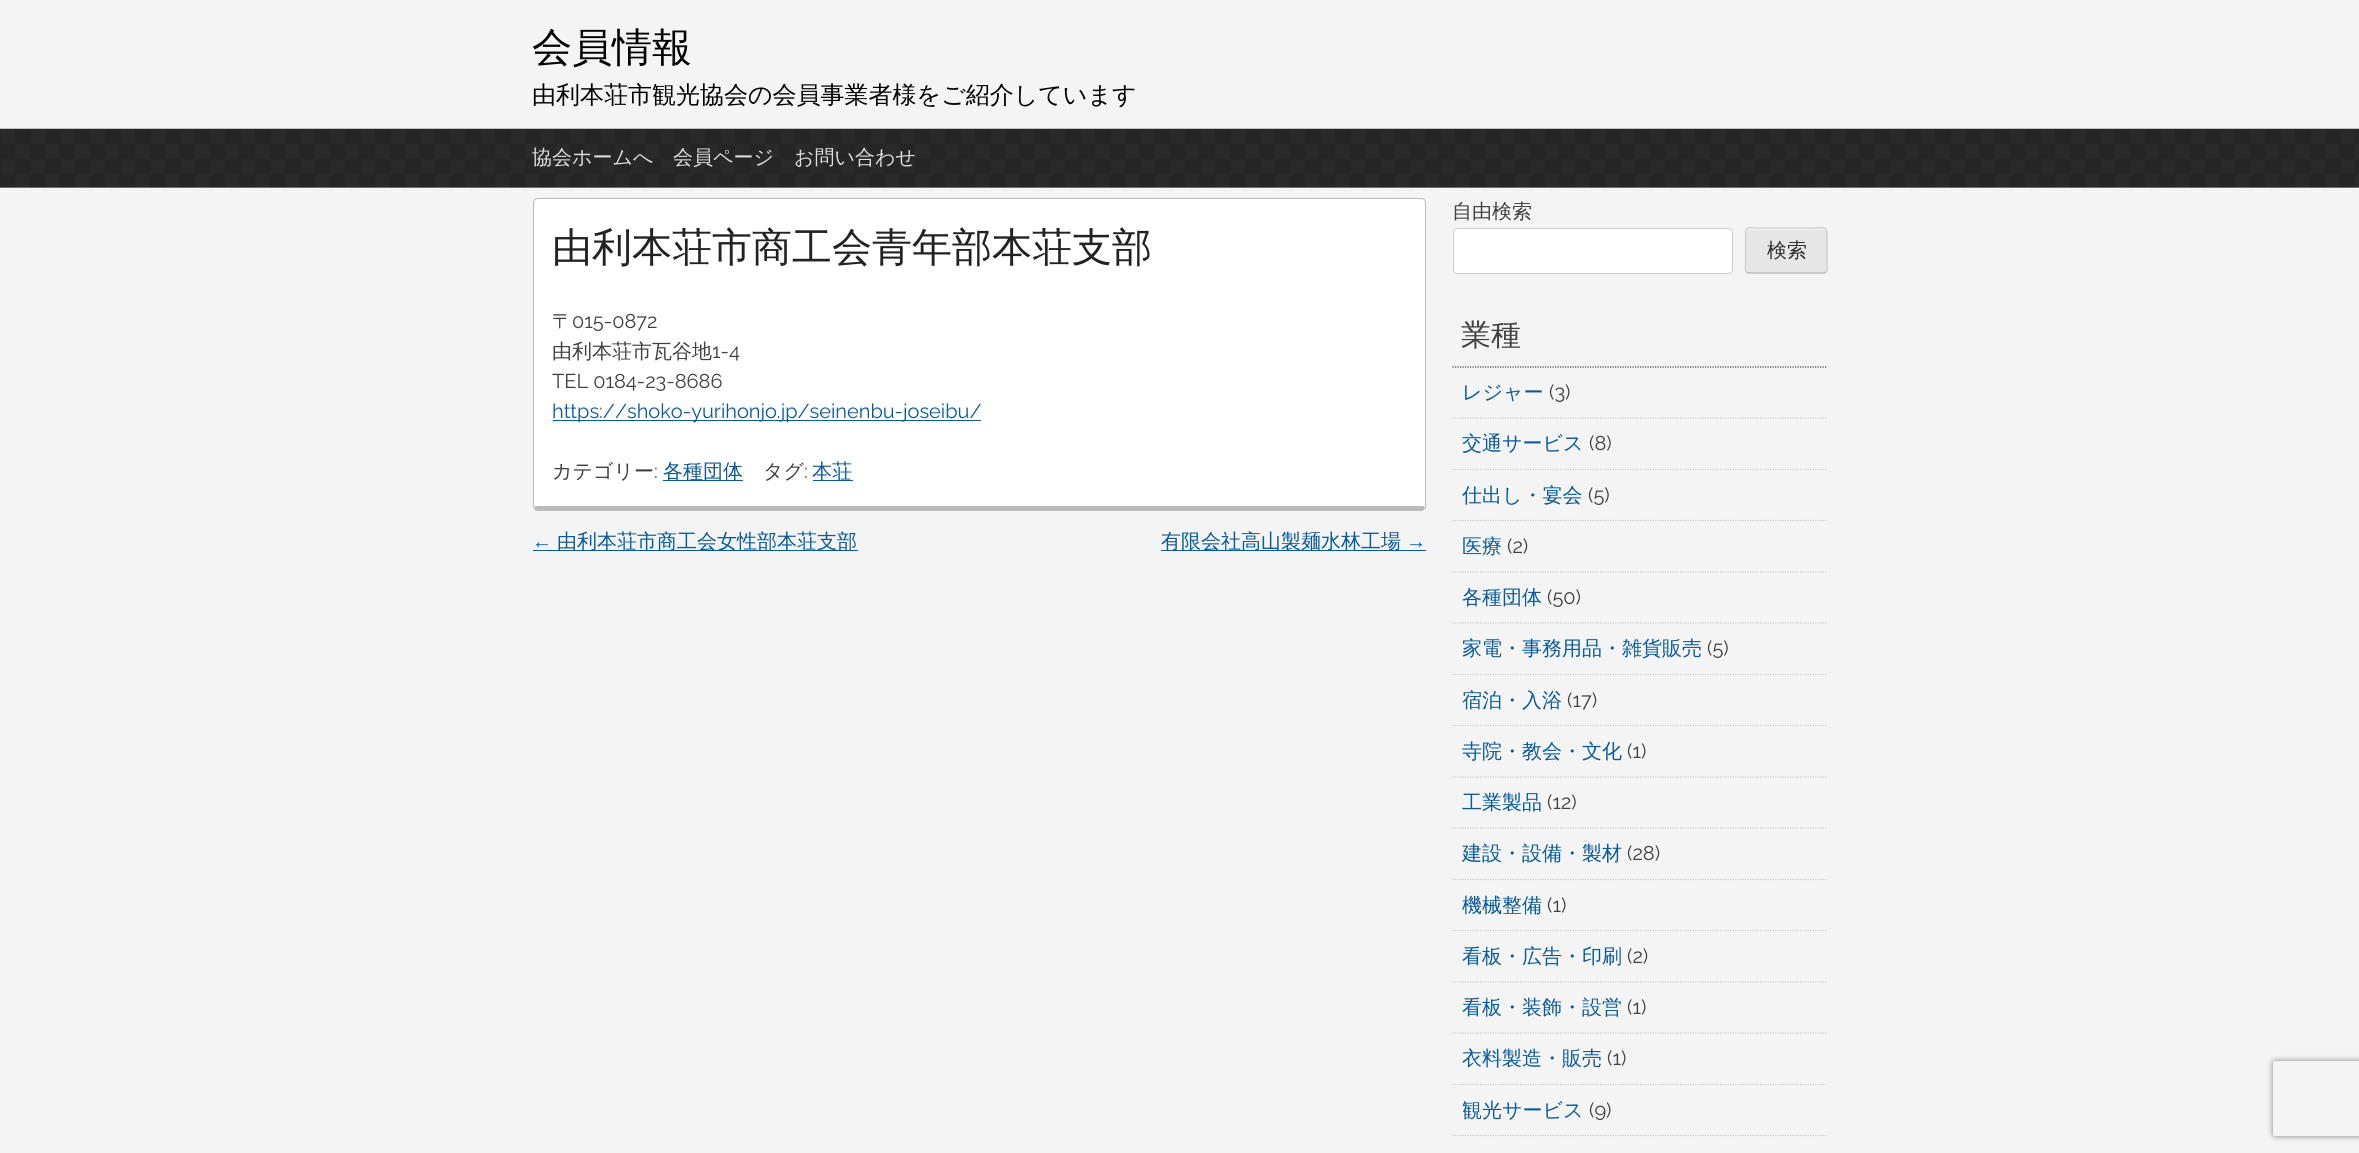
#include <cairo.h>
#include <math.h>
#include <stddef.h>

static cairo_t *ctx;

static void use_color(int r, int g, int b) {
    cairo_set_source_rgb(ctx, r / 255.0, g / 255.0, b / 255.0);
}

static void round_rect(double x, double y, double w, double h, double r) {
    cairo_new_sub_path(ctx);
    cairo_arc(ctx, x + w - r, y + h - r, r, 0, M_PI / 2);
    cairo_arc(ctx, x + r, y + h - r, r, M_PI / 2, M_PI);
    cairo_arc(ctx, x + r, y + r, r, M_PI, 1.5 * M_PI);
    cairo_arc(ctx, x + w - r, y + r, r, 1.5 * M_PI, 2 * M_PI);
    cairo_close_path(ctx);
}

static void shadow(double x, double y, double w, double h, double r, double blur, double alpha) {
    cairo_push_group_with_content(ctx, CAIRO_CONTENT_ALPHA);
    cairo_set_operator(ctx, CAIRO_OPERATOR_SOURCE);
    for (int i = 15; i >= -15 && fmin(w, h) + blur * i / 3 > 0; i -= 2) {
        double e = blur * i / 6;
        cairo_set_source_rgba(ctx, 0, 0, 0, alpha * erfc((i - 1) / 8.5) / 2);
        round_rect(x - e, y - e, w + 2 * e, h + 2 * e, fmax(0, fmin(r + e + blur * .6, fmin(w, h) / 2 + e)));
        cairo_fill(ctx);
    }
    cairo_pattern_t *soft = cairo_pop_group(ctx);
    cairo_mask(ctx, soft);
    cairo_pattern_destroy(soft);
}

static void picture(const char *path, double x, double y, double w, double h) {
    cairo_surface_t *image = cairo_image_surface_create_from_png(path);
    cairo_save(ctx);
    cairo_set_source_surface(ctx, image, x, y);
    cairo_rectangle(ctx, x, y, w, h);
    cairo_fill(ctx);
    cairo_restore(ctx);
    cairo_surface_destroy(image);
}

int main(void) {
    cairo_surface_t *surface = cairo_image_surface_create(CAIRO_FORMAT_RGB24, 2359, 1153);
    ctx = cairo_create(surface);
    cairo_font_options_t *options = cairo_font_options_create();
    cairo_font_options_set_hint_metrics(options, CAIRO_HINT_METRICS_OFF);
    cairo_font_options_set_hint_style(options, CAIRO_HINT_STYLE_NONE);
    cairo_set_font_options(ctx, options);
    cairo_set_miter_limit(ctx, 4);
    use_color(244, 244, 245);
    cairo_paint(ctx);
    cairo_select_font_face(ctx, "WenQuanYi Zen Hei Medium", CAIRO_FONT_SLANT_NORMAL, CAIRO_FONT_WEIGHT_NORMAL);
    cairo_set_font_size(ctx, 40);
    use_color(0, 0, 0);
    cairo_move_to(ctx, 532, 61);
    cairo_show_text(ctx, "会員情報");
    cairo_set_font_size(ctx, 24);
    cairo_move_to(ctx, 532, 103);
    cairo_show_text(ctx, "由利本荘市観光協会の会員事業者様をご紹介しています");
    use_color(183, 183, 183);
    cairo_rectangle(ctx, 0, 187, 2359, 1);
    cairo_fill(ctx);
    picture("img1.png", 0, 128, 2359, 60);
    cairo_set_font_size(ctx, 20);
    use_color(221, 221, 221);
    cairo_move_to(ctx, 532, 164);
    cairo_show_text(ctx, "協会ホームへ");
    cairo_move_to(ctx, 673, 164);
    cairo_show_text(ctx, "会員ページ");
    cairo_move_to(ctx, 794, 164);
    cairo_show_text(ctx, "お問い合わせ");
    use_color(255, 255, 255);
    cairo_new_path(ctx);
    cairo_move_to(ctx, 538, 199);
    cairo_line_to(ctx, 1421, 199);
    cairo_curve_to(ctx, 1423, 199, 1425, 200, 1425, 202);
    cairo_line_to(ctx, 1425, 506);
    cairo_line_to(ctx, 534, 506);
    cairo_line_to(ctx, 534, 202);
    cairo_curve_to(ctx, 534, 200, 535, 199, 538, 199);
    cairo_close_path(ctx);
    cairo_fill(ctx);
    round_rect(533.5, 198.5, 892, 312, 4.5);
    use_color(187, 187, 187);
    cairo_set_line_width(ctx, 1);
    cairo_stroke(ctx);
    cairo_rectangle(ctx, 535, 506, 889, 4);
    cairo_fill(ctx);
    cairo_set_font_size(ctx, 40);
    use_color(34, 34, 34);
    cairo_move_to(ctx, 552, 261);
    cairo_show_text(ctx, "由利本荘市商工会青年部本荘支部");
    cairo_set_font_size(ctx, 20);
    use_color(64, 64, 64);
    cairo_move_to(ctx, 552, 328);
    cairo_show_text(ctx, "〒");
    cairo_select_font_face(ctx, "Raleway", CAIRO_FONT_SLANT_NORMAL, CAIRO_FONT_WEIGHT_NORMAL);
    cairo_move_to(ctx, 572, 328);
    cairo_show_text(ctx, "015-0872");
    cairo_select_font_face(ctx, "WenQuanYi Zen Hei Medium", CAIRO_FONT_SLANT_NORMAL, CAIRO_FONT_WEIGHT_NORMAL);
    cairo_move_to(ctx, 552, 358);
    cairo_show_text(ctx, "由利本荘市瓦谷地");
    cairo_select_font_face(ctx, "Raleway", CAIRO_FONT_SLANT_NORMAL, CAIRO_FONT_WEIGHT_NORMAL);
    cairo_move_to(ctx, 712, 358);
    cairo_show_text(ctx, "1-4");
    cairo_move_to(ctx, 552, 388);
    cairo_show_text(ctx, "TEL 0184-23-8686");
    use_color(9, 90, 153);
    cairo_rectangle(ctx, 553, 420, 428, 1);
    cairo_fill(ctx);
    cairo_move_to(ctx, 552, 418);
    cairo_show_text(ctx, "https://shoko-yurihonjo.jp/seinenbu-joseibu/");
    cairo_select_font_face(ctx, "WenQuanYi Zen Hei Medium", CAIRO_FONT_SLANT_NORMAL, CAIRO_FONT_WEIGHT_NORMAL);
    use_color(64, 64, 64);
    cairo_move_to(ctx, 552, 478);
    cairo_show_text(ctx, "カテゴリー");
    cairo_select_font_face(ctx, "Raleway", CAIRO_FONT_SLANT_NORMAL, CAIRO_FONT_WEIGHT_NORMAL);
    cairo_move_to(ctx, 654, 478);
    cairo_show_text(ctx, ":");
    use_color(9, 90, 153);
    cairo_rectangle(ctx, 663, 480, 80, 1);
    cairo_fill(ctx);
    cairo_select_font_face(ctx, "WenQuanYi Zen Hei Medium", CAIRO_FONT_SLANT_NORMAL, CAIRO_FONT_WEIGHT_NORMAL);
    cairo_move_to(ctx, 663, 478);
    cairo_show_text(ctx, "各種団体");
    use_color(64, 64, 64);
    cairo_move_to(ctx, 763, 478);
    cairo_show_text(ctx, "タグ");
    cairo_select_font_face(ctx, "Raleway", CAIRO_FONT_SLANT_NORMAL, CAIRO_FONT_WEIGHT_NORMAL);
    cairo_move_to(ctx, 804, 478);
    cairo_show_text(ctx, ":");
    use_color(9, 90, 153);
    cairo_rectangle(ctx, 813, 480, 40, 1);
    cairo_fill(ctx);
    cairo_select_font_face(ctx, "WenQuanYi Zen Hei Medium", CAIRO_FONT_SLANT_NORMAL, CAIRO_FONT_WEIGHT_NORMAL);
    cairo_move_to(ctx, 812, 478);
    cairo_show_text(ctx, "本荘");
    cairo_select_font_face(ctx, "Liberation Sans", CAIRO_FONT_SLANT_NORMAL, CAIRO_FONT_WEIGHT_NORMAL);
    cairo_move_to(ctx, 532, 548);
    cairo_show_text(ctx, "←");
    cairo_rectangle(ctx, 533, 550, 325, 1);
    cairo_fill(ctx);
    cairo_select_font_face(ctx, "WenQuanYi Zen Hei Medium", CAIRO_FONT_SLANT_NORMAL, CAIRO_FONT_WEIGHT_NORMAL);
    cairo_move_to(ctx, 557, 548);
    cairo_show_text(ctx, "由利本荘市商工会女性部本荘支部");
    cairo_rectangle(ctx, 1161, 550, 265, 1);
    cairo_fill(ctx);
    cairo_move_to(ctx, 1161, 548);
    cairo_show_text(ctx, "有限会社高山製麺水林工場");
    cairo_select_font_face(ctx, "Liberation Sans", CAIRO_FONT_SLANT_NORMAL, CAIRO_FONT_WEIGHT_NORMAL);
    cairo_move_to(ctx, 1406, 548);
    cairo_show_text(ctx, "→");
    cairo_select_font_face(ctx, "WenQuanYi Zen Hei Medium", CAIRO_FONT_SLANT_NORMAL, CAIRO_FONT_WEIGHT_NORMAL);
    use_color(64, 64, 64);
    cairo_move_to(ctx, 1452, 218);
    cairo_show_text(ctx, "自由検索");
    use_color(255, 255, 255);
    round_rect(1453.5, 228.5, 279, 45, 3.5);
    cairo_fill_preserve(ctx);
    use_color(204, 204, 204);
    cairo_stroke(ctx);
    use_color(230, 230, 230);
    round_rect(1745, 228, 83, 46, 4);
    cairo_fill(ctx);
    use_color(243, 243, 243);
    cairo_new_path(ctx);
    cairo_move_to(ctx, 1749, 230);
    cairo_line_to(ctx, 1824, 230);
    cairo_curve_to(ctx, 1825, 230, 1826, 231, 1826, 232);
    cairo_curve_to(ctx, 1826, 230, 1825, 229, 1824, 229);
    cairo_line_to(ctx, 1761, 229);
    cairo_curve_to(ctx, 1760, 229, 1746, 226, 1746, 232);
    cairo_curve_to(ctx, 1746, 231, 1747, 230, 1749, 230);
    cairo_close_path(ctx);
    cairo_fill(ctx);
    cairo_new_path(ctx);
    cairo_move_to(ctx, 1826, 272);
    cairo_line_to(ctx, 1824, 273);
    cairo_line_to(ctx, 1748.5, 273);
    cairo_line_to(ctx, 1746.5, 272);
    use_color(187, 187, 187);
    cairo_set_line_width(ctx, 1.2);
    cairo_stroke(ctx);
    cairo_new_path(ctx);
    cairo_move_to(ctx, 1746.5, 272);
    cairo_curve_to(ctx, 1744.5, 270.5, 1745.5, 265, 1745.5, 263.5);
    cairo_line_to(ctx, 1745.5, 237.5);
    cairo_curve_to(ctx, 1745.5, 225, 1746.5, 228, 1761, 228);
    cairo_line_to(ctx, 1811, 228);
    cairo_curve_to(ctx, 1826, 228, 1827, 225, 1827, 237.5);
    cairo_line_to(ctx, 1827, 263.5);
    cairo_curve_to(ctx, 1827, 265, 1828, 270.5, 1826, 272);
    use_color(204, 204, 204);
    cairo_stroke(ctx);
    use_color(46, 46, 46);
    cairo_move_to(ctx, 1767, 257);
    cairo_show_text(ctx, "検索");
    cairo_new_path(ctx);
    cairo_move_to(ctx, 1452.5, 367);
    cairo_line_to(ctx, 1827.5, 367);
    use_color(68, 68, 68);
    cairo_set_dash(ctx, (double[]){1.25, 1.25}, 2, 0);
    cairo_stroke(ctx);
    cairo_set_font_size(ctx, 30);
    use_color(64, 64, 64);
    cairo_move_to(ctx, 1461, 345);
    cairo_show_text(ctx, "業種");
    cairo_new_path(ctx);
    cairo_move_to(ctx, 1452.5, 418);
    cairo_line_to(ctx, 1827.5, 418);
    use_color(204, 204, 204);
    cairo_stroke(ctx);
    cairo_set_font_size(ctx, 20);
    use_color(9, 90, 153);
    cairo_move_to(ctx, 1462, 399);
    cairo_show_text(ctx, "レジャー");
    cairo_select_font_face(ctx, "Raleway", CAIRO_FONT_SLANT_NORMAL, CAIRO_FONT_WEIGHT_NORMAL);
    use_color(64, 64, 64);
    cairo_move_to(ctx, 1549, 399);
    cairo_show_text(ctx, "(3)");
    cairo_new_path(ctx);
    cairo_move_to(ctx, 1452.5, 469.5);
    cairo_line_to(ctx, 1827.5, 469.5);
    use_color(204, 204, 204);
    cairo_stroke(ctx);
    cairo_select_font_face(ctx, "WenQuanYi Zen Hei Medium", CAIRO_FONT_SLANT_NORMAL, CAIRO_FONT_WEIGHT_NORMAL);
    use_color(9, 90, 153);
    cairo_move_to(ctx, 1462, 450);
    cairo_show_text(ctx, "交通サービス");
    cairo_select_font_face(ctx, "Raleway", CAIRO_FONT_SLANT_NORMAL, CAIRO_FONT_WEIGHT_NORMAL);
    use_color(64, 64, 64);
    cairo_move_to(ctx, 1589, 450);
    cairo_show_text(ctx, "(8)");
    cairo_new_path(ctx);
    cairo_move_to(ctx, 1452.5, 520.5);
    cairo_line_to(ctx, 1827.5, 520.5);
    use_color(204, 204, 204);
    cairo_stroke(ctx);
    cairo_select_font_face(ctx, "WenQuanYi Zen Hei Medium", CAIRO_FONT_SLANT_NORMAL, CAIRO_FONT_WEIGHT_NORMAL);
    use_color(9, 90, 153);
    cairo_move_to(ctx, 1462, 502);
    cairo_show_text(ctx, "仕出し・宴会");
    cairo_select_font_face(ctx, "Raleway", CAIRO_FONT_SLANT_NORMAL, CAIRO_FONT_WEIGHT_NORMAL);
    use_color(64, 64, 64);
    cairo_move_to(ctx, 1588, 502);
    cairo_show_text(ctx, "(5)");
    cairo_new_path(ctx);
    cairo_move_to(ctx, 1452.5, 572);
    cairo_line_to(ctx, 1827.5, 572);
    use_color(204, 204, 204);
    cairo_stroke(ctx);
    cairo_select_font_face(ctx, "WenQuanYi Zen Hei Medium", CAIRO_FONT_SLANT_NORMAL, CAIRO_FONT_WEIGHT_NORMAL);
    use_color(9, 90, 153);
    cairo_move_to(ctx, 1462, 553);
    cairo_show_text(ctx, "医療");
    cairo_select_font_face(ctx, "Raleway", CAIRO_FONT_SLANT_NORMAL, CAIRO_FONT_WEIGHT_NORMAL);
    use_color(64, 64, 64);
    cairo_move_to(ctx, 1507, 553);
    cairo_show_text(ctx, "(2)");
    cairo_new_path(ctx);
    cairo_move_to(ctx, 1452.5, 623);
    cairo_line_to(ctx, 1827.5, 623);
    use_color(204, 204, 204);
    cairo_stroke(ctx);
    cairo_select_font_face(ctx, "WenQuanYi Zen Hei Medium", CAIRO_FONT_SLANT_NORMAL, CAIRO_FONT_WEIGHT_NORMAL);
    use_color(9, 90, 153);
    cairo_move_to(ctx, 1462, 604);
    cairo_show_text(ctx, "各種団体");
    cairo_select_font_face(ctx, "Raleway", CAIRO_FONT_SLANT_NORMAL, CAIRO_FONT_WEIGHT_NORMAL);
    use_color(64, 64, 64);
    cairo_move_to(ctx, 1547, 604);
    cairo_show_text(ctx, "(50)");
    cairo_new_path(ctx);
    cairo_move_to(ctx, 1452.5, 674.5);
    cairo_line_to(ctx, 1827.5, 674.5);
    use_color(204, 204, 204);
    cairo_stroke(ctx);
    cairo_select_font_face(ctx, "WenQuanYi Zen Hei Medium", CAIRO_FONT_SLANT_NORMAL, CAIRO_FONT_WEIGHT_NORMAL);
    use_color(9, 90, 153);
    cairo_move_to(ctx, 1462, 655);
    cairo_show_text(ctx, "家電・事務用品・雑貨販売");
    cairo_select_font_face(ctx, "Raleway", CAIRO_FONT_SLANT_NORMAL, CAIRO_FONT_WEIGHT_NORMAL);
    use_color(64, 64, 64);
    cairo_move_to(ctx, 1707, 655);
    cairo_show_text(ctx, "(5)");
    cairo_new_path(ctx);
    cairo_move_to(ctx, 1452.5, 725.5);
    cairo_line_to(ctx, 1827.5, 725.5);
    use_color(204, 204, 204);
    cairo_stroke(ctx);
    cairo_select_font_face(ctx, "WenQuanYi Zen Hei Medium", CAIRO_FONT_SLANT_NORMAL, CAIRO_FONT_WEIGHT_NORMAL);
    use_color(9, 90, 153);
    cairo_move_to(ctx, 1462, 707);
    cairo_show_text(ctx, "宿泊・入浴");
    cairo_select_font_face(ctx, "Raleway", CAIRO_FONT_SLANT_NORMAL, CAIRO_FONT_WEIGHT_NORMAL);
    use_color(64, 64, 64);
    cairo_move_to(ctx, 1567, 707);
    cairo_show_text(ctx, "(17)");
    cairo_new_path(ctx);
    cairo_move_to(ctx, 1452.5, 777);
    cairo_line_to(ctx, 1827.5, 777);
    use_color(204, 204, 204);
    cairo_stroke(ctx);
    cairo_select_font_face(ctx, "WenQuanYi Zen Hei Medium", CAIRO_FONT_SLANT_NORMAL, CAIRO_FONT_WEIGHT_NORMAL);
    use_color(9, 90, 153);
    cairo_move_to(ctx, 1462, 758);
    cairo_show_text(ctx, "寺院・教会・文化");
    cairo_select_font_face(ctx, "Raleway", CAIRO_FONT_SLANT_NORMAL, CAIRO_FONT_WEIGHT_NORMAL);
    use_color(64, 64, 64);
    cairo_move_to(ctx, 1627, 758);
    cairo_show_text(ctx, "(1)");
    cairo_new_path(ctx);
    cairo_move_to(ctx, 1452.5, 828);
    cairo_line_to(ctx, 1827.5, 828);
    use_color(204, 204, 204);
    cairo_stroke(ctx);
    cairo_select_font_face(ctx, "WenQuanYi Zen Hei Medium", CAIRO_FONT_SLANT_NORMAL, CAIRO_FONT_WEIGHT_NORMAL);
    use_color(9, 90, 153);
    cairo_move_to(ctx, 1462, 809);
    cairo_show_text(ctx, "工業製品");
    cairo_select_font_face(ctx, "Raleway", CAIRO_FONT_SLANT_NORMAL, CAIRO_FONT_WEIGHT_NORMAL);
    use_color(64, 64, 64);
    cairo_move_to(ctx, 1547, 809);
    cairo_show_text(ctx, "(12)");
    cairo_new_path(ctx);
    cairo_move_to(ctx, 1452.5, 879.5);
    cairo_line_to(ctx, 1827.5, 879.5);
    use_color(204, 204, 204);
    cairo_stroke(ctx);
    cairo_select_font_face(ctx, "WenQuanYi Zen Hei Medium", CAIRO_FONT_SLANT_NORMAL, CAIRO_FONT_WEIGHT_NORMAL);
    use_color(9, 90, 153);
    cairo_move_to(ctx, 1462, 860);
    cairo_show_text(ctx, "建設・設備・製材");
    cairo_select_font_face(ctx, "Raleway", CAIRO_FONT_SLANT_NORMAL, CAIRO_FONT_WEIGHT_NORMAL);
    use_color(64, 64, 64);
    cairo_move_to(ctx, 1627, 860);
    cairo_show_text(ctx, "(28)");
    cairo_new_path(ctx);
    cairo_move_to(ctx, 1452.5, 930.5);
    cairo_line_to(ctx, 1827.5, 930.5);
    use_color(204, 204, 204);
    cairo_stroke(ctx);
    cairo_select_font_face(ctx, "WenQuanYi Zen Hei Medium", CAIRO_FONT_SLANT_NORMAL, CAIRO_FONT_WEIGHT_NORMAL);
    use_color(9, 90, 153);
    cairo_move_to(ctx, 1462, 912);
    cairo_show_text(ctx, "機械整備");
    cairo_select_font_face(ctx, "Raleway", CAIRO_FONT_SLANT_NORMAL, CAIRO_FONT_WEIGHT_NORMAL);
    use_color(64, 64, 64);
    cairo_move_to(ctx, 1547, 912);
    cairo_show_text(ctx, "(1)");
    cairo_new_path(ctx);
    cairo_move_to(ctx, 1452.5, 982);
    cairo_line_to(ctx, 1827.5, 982);
    use_color(204, 204, 204);
    cairo_stroke(ctx);
    cairo_select_font_face(ctx, "WenQuanYi Zen Hei Medium", CAIRO_FONT_SLANT_NORMAL, CAIRO_FONT_WEIGHT_NORMAL);
    use_color(9, 90, 153);
    cairo_move_to(ctx, 1462, 963);
    cairo_show_text(ctx, "看板・広告・印刷");
    cairo_select_font_face(ctx, "Raleway", CAIRO_FONT_SLANT_NORMAL, CAIRO_FONT_WEIGHT_NORMAL);
    use_color(64, 64, 64);
    cairo_move_to(ctx, 1627, 963);
    cairo_show_text(ctx, "(2)");
    cairo_new_path(ctx);
    cairo_move_to(ctx, 1452.5, 1033);
    cairo_line_to(ctx, 1827.5, 1033);
    use_color(204, 204, 204);
    cairo_stroke(ctx);
    cairo_select_font_face(ctx, "WenQuanYi Zen Hei Medium", CAIRO_FONT_SLANT_NORMAL, CAIRO_FONT_WEIGHT_NORMAL);
    use_color(9, 90, 153);
    cairo_move_to(ctx, 1462, 1014);
    cairo_show_text(ctx, "看板・装飾・設営");
    cairo_select_font_face(ctx, "Raleway", CAIRO_FONT_SLANT_NORMAL, CAIRO_FONT_WEIGHT_NORMAL);
    use_color(64, 64, 64);
    cairo_move_to(ctx, 1627, 1014);
    cairo_show_text(ctx, "(1)");
    cairo_new_path(ctx);
    cairo_move_to(ctx, 1452.5, 1084.5);
    cairo_line_to(ctx, 1827.5, 1084.5);
    use_color(204, 204, 204);
    cairo_stroke(ctx);
    cairo_select_font_face(ctx, "WenQuanYi Zen Hei Medium", CAIRO_FONT_SLANT_NORMAL, CAIRO_FONT_WEIGHT_NORMAL);
    use_color(9, 90, 153);
    cairo_move_to(ctx, 1462, 1065);
    cairo_show_text(ctx, "衣料製造・販売");
    cairo_select_font_face(ctx, "Raleway", CAIRO_FONT_SLANT_NORMAL, CAIRO_FONT_WEIGHT_NORMAL);
    use_color(64, 64, 64);
    cairo_move_to(ctx, 1607, 1065);
    cairo_show_text(ctx, "(1)");
    cairo_new_path(ctx);
    cairo_move_to(ctx, 1452.5, 1135.5);
    cairo_line_to(ctx, 1827.5, 1135.5);
    use_color(204, 204, 204);
    cairo_stroke(ctx);
    cairo_select_font_face(ctx, "WenQuanYi Zen Hei Medium", CAIRO_FONT_SLANT_NORMAL, CAIRO_FONT_WEIGHT_NORMAL);
    use_color(9, 90, 153);
    cairo_move_to(ctx, 1462, 1117);
    cairo_show_text(ctx, "観光サービス");
    cairo_select_font_face(ctx, "Raleway", CAIRO_FONT_SLANT_NORMAL, CAIRO_FONT_WEIGHT_NORMAL);
    use_color(64, 64, 64);
    cairo_move_to(ctx, 1589, 1117);
    cairo_show_text(ctx, "(9)");
    cairo_save(ctx);
    cairo_set_fill_rule(ctx, CAIRO_FILL_RULE_EVEN_ODD);
    cairo_new_path(ctx);
    cairo_move_to(ctx, 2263, 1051);
    cairo_line_to(ctx, 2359, 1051);
    cairo_line_to(ctx, 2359, 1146);
    cairo_line_to(ctx, 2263, 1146);
    cairo_close_path(ctx);
    cairo_move_to(ctx, 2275.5, 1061);
    cairo_line_to(ctx, 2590.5, 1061);
    cairo_curve_to(ctx, 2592, 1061, 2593, 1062, 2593, 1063.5);
    cairo_line_to(ctx, 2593, 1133.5);
    cairo_curve_to(ctx, 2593, 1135, 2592, 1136, 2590.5, 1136);
    cairo_line_to(ctx, 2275.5, 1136);
    cairo_curve_to(ctx, 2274, 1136, 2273, 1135, 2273, 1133.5);
    cairo_line_to(ctx, 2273, 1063.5);
    cairo_curve_to(ctx, 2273, 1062, 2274, 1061, 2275.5, 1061);
    cairo_close_path(ctx);
    cairo_clip(ctx);
    use_color(128, 128, 128);
    shadow(2273, 1061, 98, 75, 2.5, 3, 1);
    cairo_restore(ctx);
    cairo_surface_write_to_png(surface, "result.png");
    cairo_font_options_destroy(options);
    cairo_destroy(ctx);
    cairo_surface_destroy(surface);
    return 0;
}
